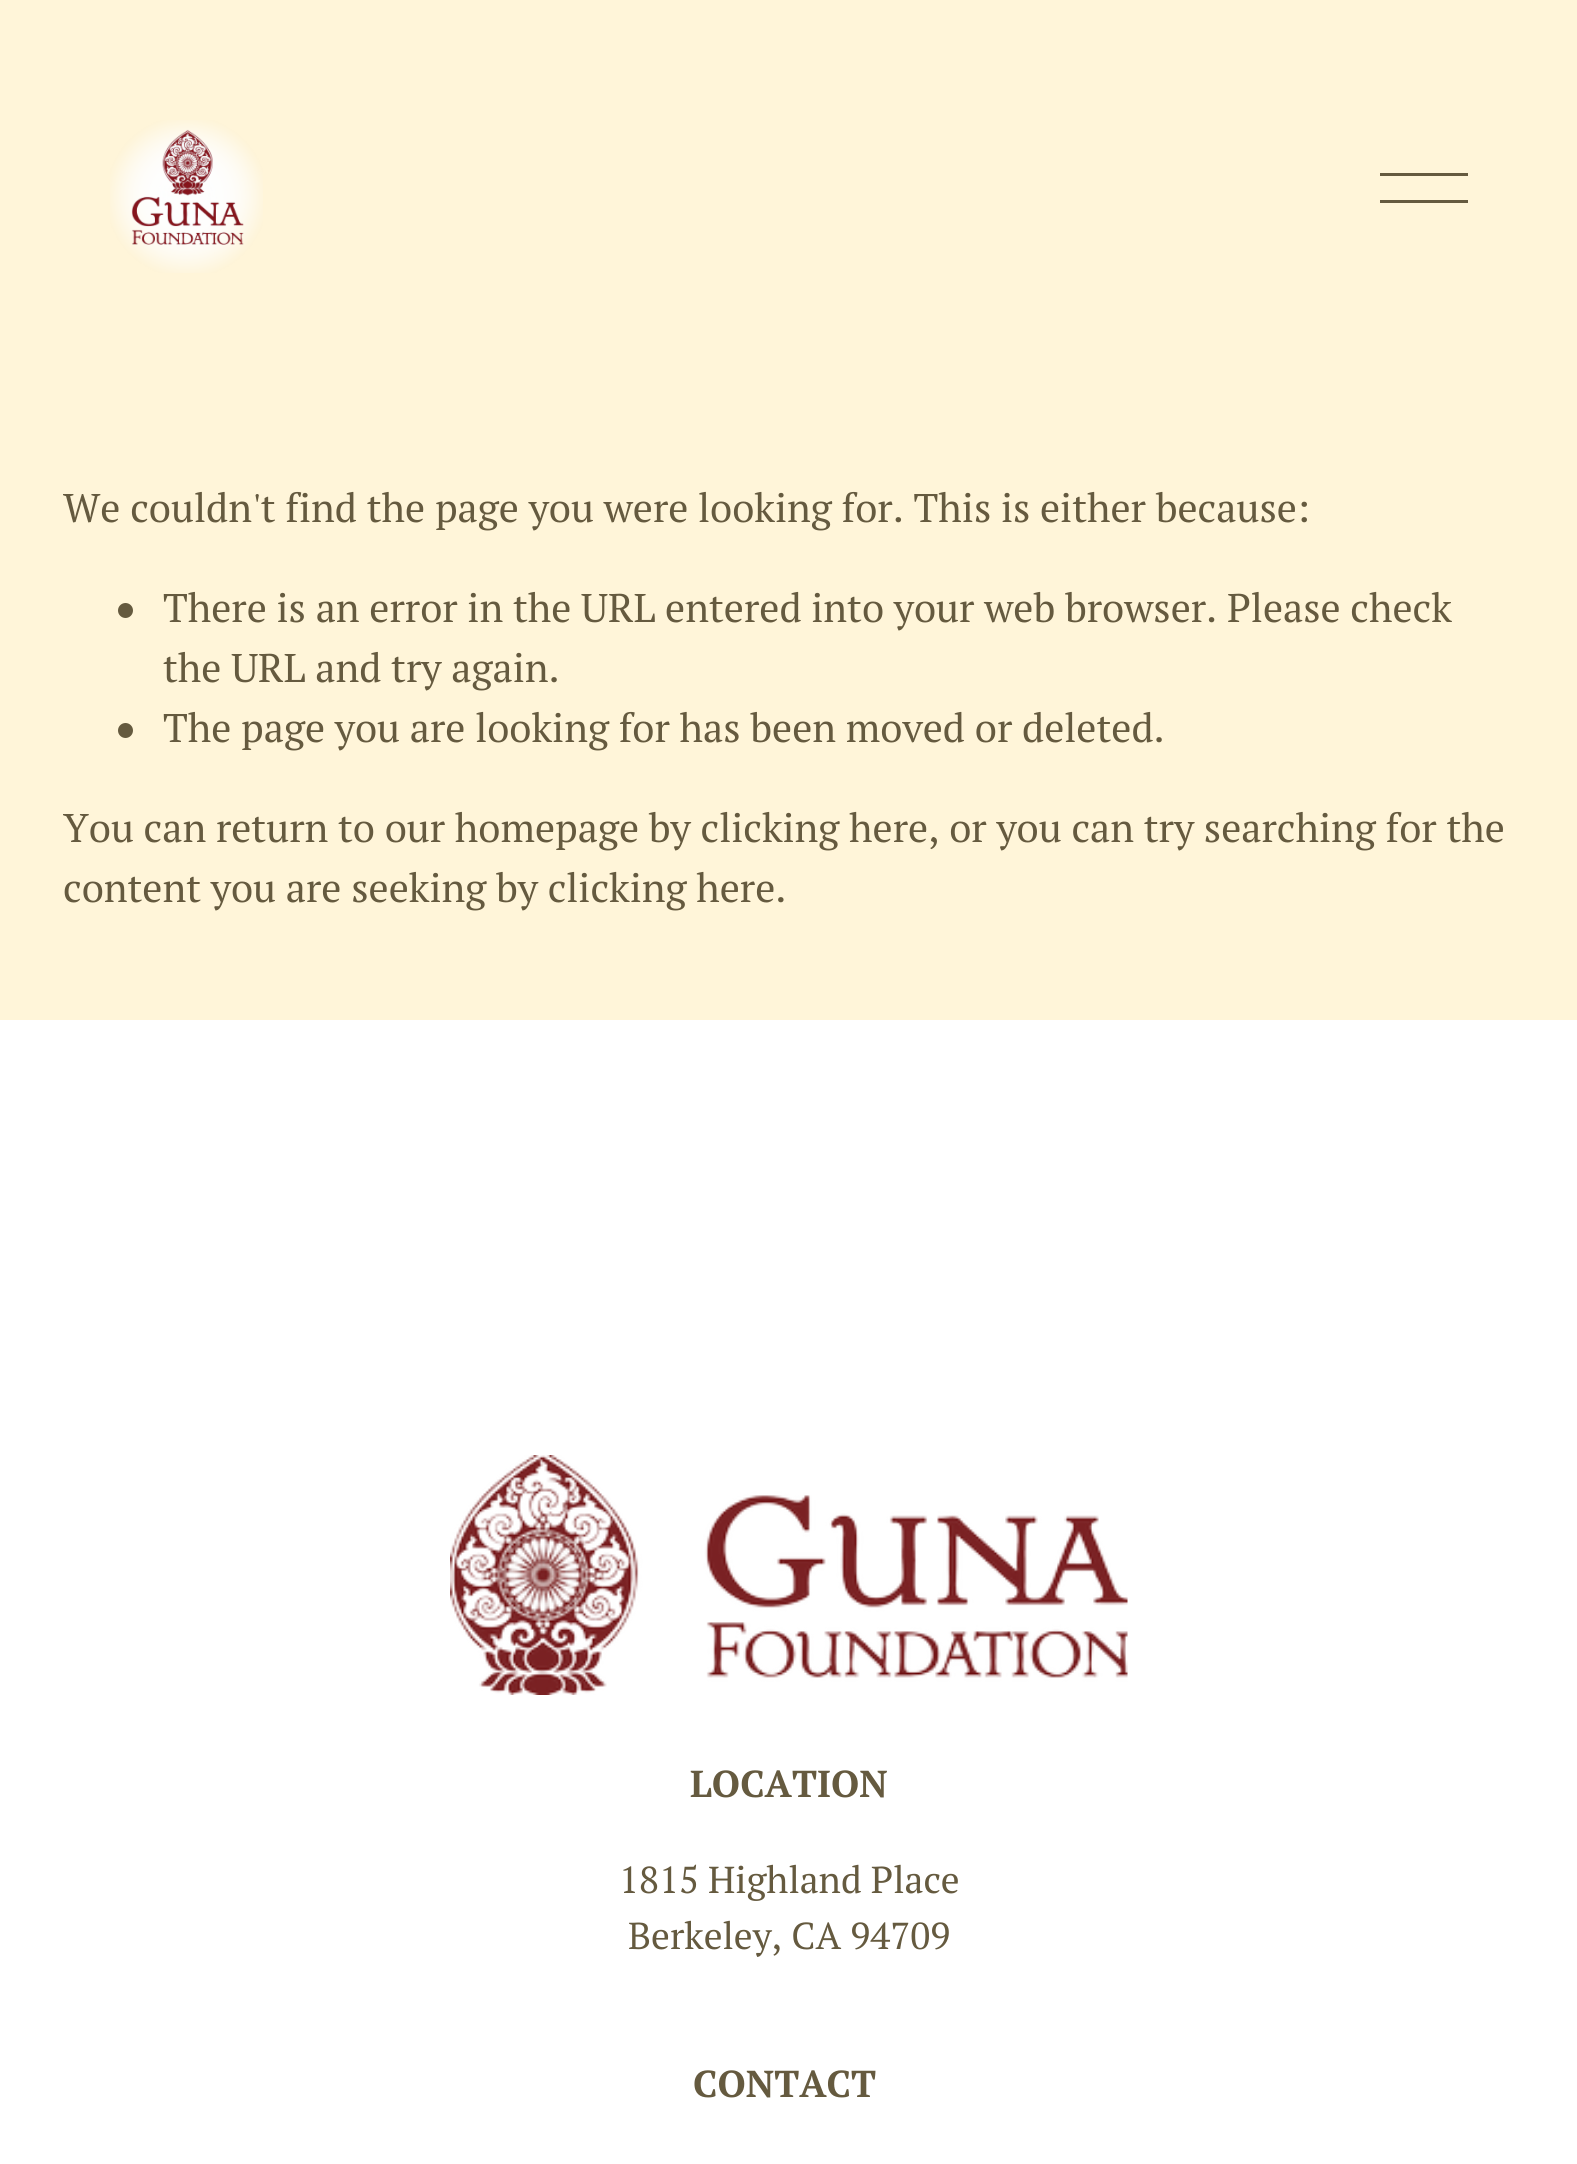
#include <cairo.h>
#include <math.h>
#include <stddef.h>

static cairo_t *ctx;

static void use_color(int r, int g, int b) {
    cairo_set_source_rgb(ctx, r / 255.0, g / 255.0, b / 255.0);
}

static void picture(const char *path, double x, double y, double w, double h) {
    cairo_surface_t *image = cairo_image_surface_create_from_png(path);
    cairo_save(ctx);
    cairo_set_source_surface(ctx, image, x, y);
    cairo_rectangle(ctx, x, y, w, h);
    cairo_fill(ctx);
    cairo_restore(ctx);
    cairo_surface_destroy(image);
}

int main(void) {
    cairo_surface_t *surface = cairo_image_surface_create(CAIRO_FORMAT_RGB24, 1577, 2164);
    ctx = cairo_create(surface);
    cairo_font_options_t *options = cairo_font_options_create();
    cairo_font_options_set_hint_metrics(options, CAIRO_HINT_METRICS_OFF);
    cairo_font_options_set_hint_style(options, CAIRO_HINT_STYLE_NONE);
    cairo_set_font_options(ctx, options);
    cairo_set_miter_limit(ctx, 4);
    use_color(255, 245, 217);
    cairo_paint(ctx);
    picture("img1.png", 110, 120, 153, 153);
    use_color(101, 90, 63);
    cairo_rectangle(ctx, 1380, 173, 88, 3);
    cairo_fill(ctx);
    cairo_rectangle(ctx, 1380, 200, 88, 3);
    cairo_fill(ctx);
    cairo_select_font_face(ctx, "PT Serif", CAIRO_FONT_SLANT_NORMAL, CAIRO_FONT_WEIGHT_NORMAL);
    cairo_set_font_size(ctx, 40);
    cairo_move_to(ctx, 63, 522);
    cairo_show_text(ctx, "We couldn't find the page you were looking for. This is either because:");
    cairo_new_path(ctx);
    cairo_arc(ctx, 125.5, 610.5, 7.5, 0, 2 * M_PI);
    cairo_fill(ctx);
    cairo_move_to(ctx, 163, 622);
    cairo_show_text(ctx, "There is an error in the URL entered into your web browser. Please check");
    cairo_move_to(ctx, 163, 682);
    cairo_show_text(ctx, "the URL and try again.");
    cairo_new_path(ctx);
    cairo_arc(ctx, 125.5, 730.5, 7.5, 0, 2 * M_PI);
    cairo_fill(ctx);
    cairo_move_to(ctx, 163, 742);
    cairo_show_text(ctx, "The page you are looking for has been moved or deleted.");
    cairo_move_to(ctx, 63, 842);
    cairo_show_text(ctx, "You can return to our homepage by clicking here, or you can try searching for the");
    cairo_move_to(ctx, 63, 902);
    cairo_show_text(ctx, "content you are seeking by clicking here.");
    use_color(255, 255, 255);
    cairo_rectangle(ctx, 0, 1020, 1577, 1144);
    cairo_fill(ctx);
    picture("img2.png", 450, 1455, 678, 240);
    cairo_select_font_face(ctx, "PT Serif", CAIRO_FONT_SLANT_NORMAL, CAIRO_FONT_WEIGHT_BOLD);
    cairo_set_font_size(ctx, 37.5);
    use_color(101, 90, 63);
    cairo_move_to(ctx, 690, 1797);
    cairo_show_text(ctx, "LOCATION");
    cairo_select_font_face(ctx, "PT Serif", CAIRO_FONT_SLANT_NORMAL, CAIRO_FONT_WEIGHT_NORMAL);
    cairo_move_to(ctx, 619, 1893);
    cairo_show_text(ctx, "1815 Highland Place");
    cairo_move_to(ctx, 628, 1949);
    cairo_show_text(ctx, "Berkeley, CA 94709");
    cairo_select_font_face(ctx, "PT Serif", CAIRO_FONT_SLANT_NORMAL, CAIRO_FONT_WEIGHT_BOLD);
    cairo_move_to(ctx, 693, 2097);
    cairo_show_text(ctx, "CONTACT");
    cairo_surface_write_to_png(surface, "result.png");
    cairo_font_options_destroy(options);
    cairo_destroy(ctx);
    cairo_surface_destroy(surface);
    return 0;
}
